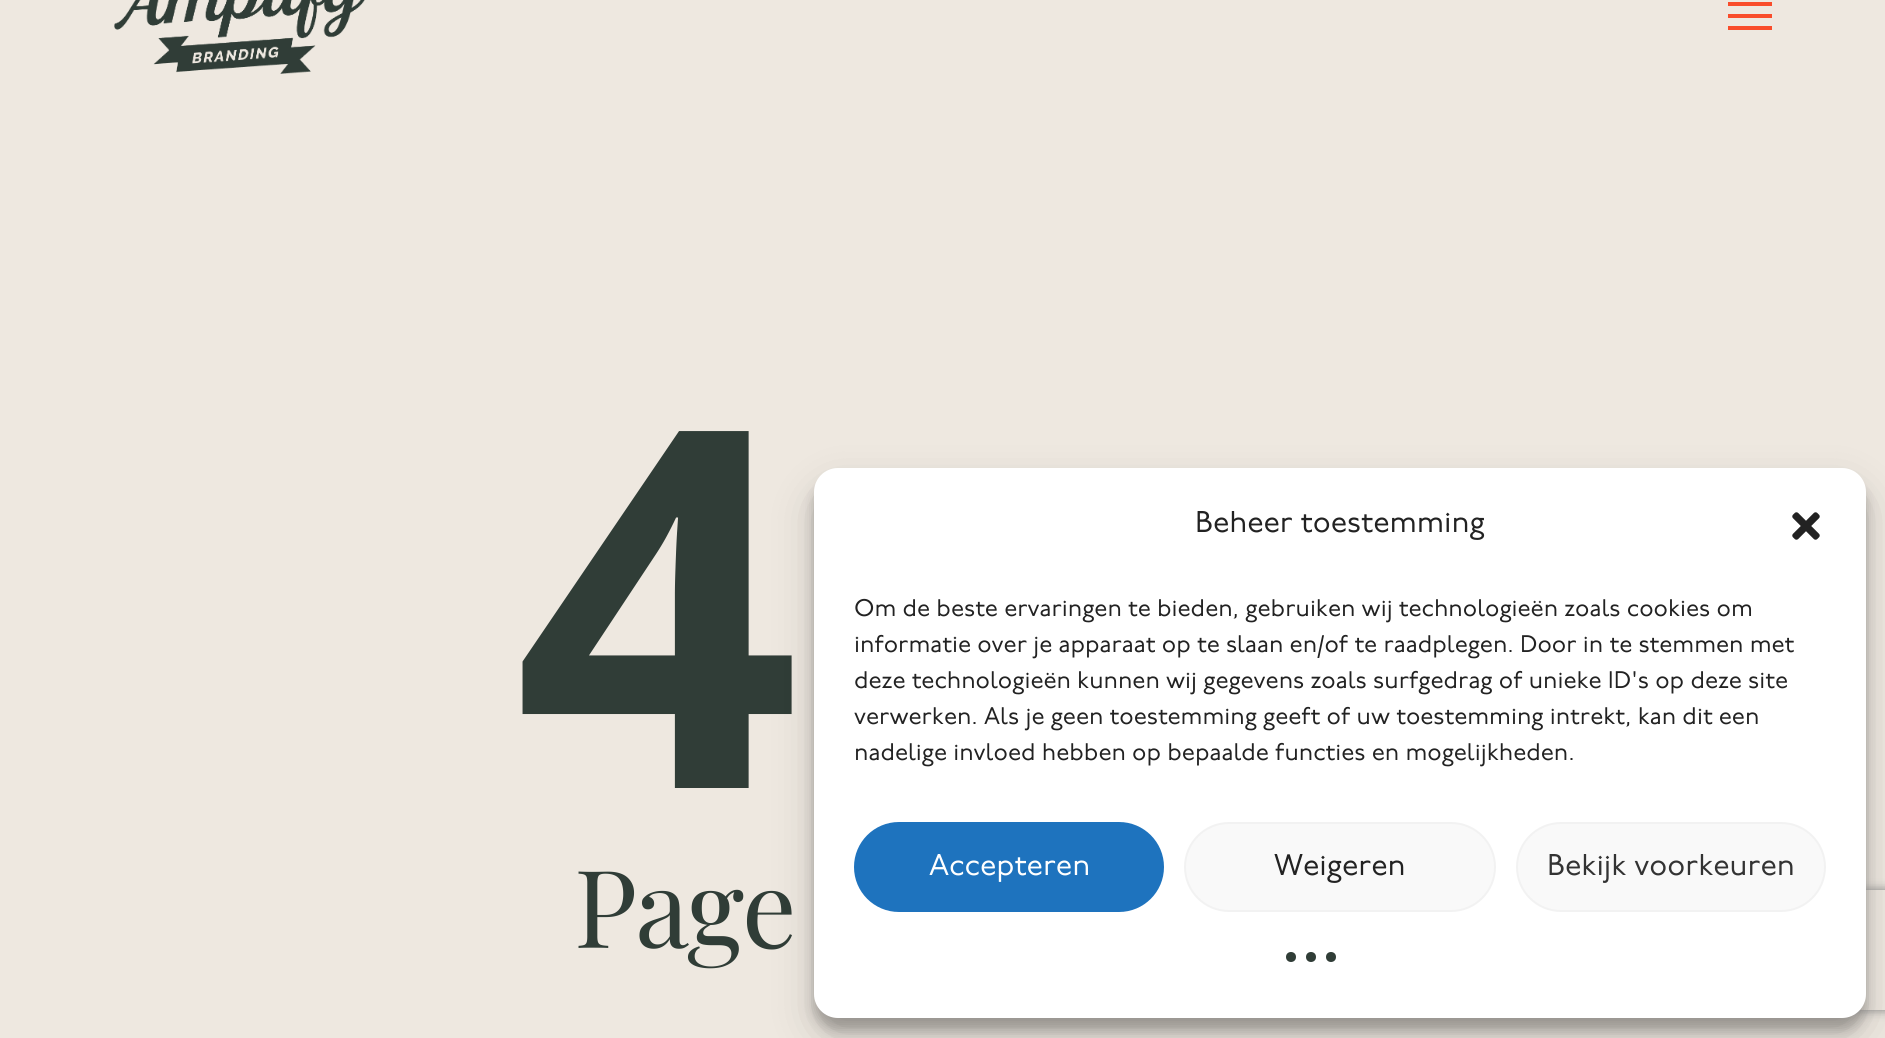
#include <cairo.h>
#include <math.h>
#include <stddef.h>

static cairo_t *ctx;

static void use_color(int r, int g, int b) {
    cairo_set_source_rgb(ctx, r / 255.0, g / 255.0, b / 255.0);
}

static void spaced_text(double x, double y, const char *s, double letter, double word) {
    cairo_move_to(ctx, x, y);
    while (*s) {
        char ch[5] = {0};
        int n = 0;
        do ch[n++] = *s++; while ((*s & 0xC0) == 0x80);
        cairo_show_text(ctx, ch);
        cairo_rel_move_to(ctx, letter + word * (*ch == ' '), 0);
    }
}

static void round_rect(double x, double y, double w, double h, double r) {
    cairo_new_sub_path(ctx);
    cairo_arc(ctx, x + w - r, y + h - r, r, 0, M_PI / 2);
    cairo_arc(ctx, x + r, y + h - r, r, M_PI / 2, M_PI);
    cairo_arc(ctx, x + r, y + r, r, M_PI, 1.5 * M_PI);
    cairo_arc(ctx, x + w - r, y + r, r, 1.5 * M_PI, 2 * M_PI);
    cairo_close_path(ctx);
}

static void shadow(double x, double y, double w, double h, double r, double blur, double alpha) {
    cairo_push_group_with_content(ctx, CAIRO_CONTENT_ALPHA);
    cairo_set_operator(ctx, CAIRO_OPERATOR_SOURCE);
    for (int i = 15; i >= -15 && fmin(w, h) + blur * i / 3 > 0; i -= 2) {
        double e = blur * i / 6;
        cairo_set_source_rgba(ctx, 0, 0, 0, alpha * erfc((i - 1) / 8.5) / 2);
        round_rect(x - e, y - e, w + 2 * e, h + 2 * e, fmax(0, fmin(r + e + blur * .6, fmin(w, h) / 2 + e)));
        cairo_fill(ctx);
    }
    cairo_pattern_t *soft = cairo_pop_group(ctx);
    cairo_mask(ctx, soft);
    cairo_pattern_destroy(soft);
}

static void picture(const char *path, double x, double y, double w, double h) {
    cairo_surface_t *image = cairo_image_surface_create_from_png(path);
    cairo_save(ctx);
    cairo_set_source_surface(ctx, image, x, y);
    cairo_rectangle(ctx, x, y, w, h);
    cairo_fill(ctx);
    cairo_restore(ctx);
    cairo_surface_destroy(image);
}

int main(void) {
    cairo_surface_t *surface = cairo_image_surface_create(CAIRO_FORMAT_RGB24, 1885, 1038);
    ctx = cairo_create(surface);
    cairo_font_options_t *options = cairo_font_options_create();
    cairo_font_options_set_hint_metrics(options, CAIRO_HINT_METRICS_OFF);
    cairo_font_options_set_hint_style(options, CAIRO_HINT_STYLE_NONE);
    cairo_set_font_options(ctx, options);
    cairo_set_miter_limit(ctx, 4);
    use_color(238, 232, 224);
    cairo_paint(ctx);
    picture("img1.png", 114, 0, 251, 74);
    use_color(249, 77, 43);
    cairo_rectangle(ctx, 1728, 2, 44, 4);
    cairo_fill(ctx);
    cairo_rectangle(ctx, 1728, 26, 44, 4);
    cairo_fill(ctx);
    cairo_rectangle(ctx, 1728, 14, 44, 4);
    cairo_fill(ctx);
    cairo_select_font_face(ctx, "Open Sans", CAIRO_FONT_SLANT_NORMAL, CAIRO_FONT_WEIGHT_BOLD);
    cairo_set_font_size(ctx, 500);
    use_color(48, 61, 55);
    cairo_move_to(ctx, 514, 788);
    cairo_show_text(ctx, "4");
    cairo_select_font_face(ctx, "Playfair Display", CAIRO_FONT_SLANT_NORMAL, CAIRO_FONT_WEIGHT_NORMAL);
    cairo_set_font_size(ctx, 108);
    spaced_text(574, 948, "Page", -2, 0);
    use_color(0, 0, 0);
    shadow(814, 480, 1052, 550, 24, 6, 0.23);
    shadow(814, 488, 1052, 550, 24, 20, 0.19);
    cairo_save(ctx);
    cairo_set_fill_rule(ctx, CAIRO_FILL_RULE_EVEN_ODD);
    cairo_new_path(ctx);
    cairo_move_to(ctx, 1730, 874);
    cairo_line_to(ctx, 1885, 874);
    cairo_line_to(ctx, 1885, 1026);
    cairo_line_to(ctx, 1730, 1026);
    cairo_close_path(ctx);
    cairo_move_to(ctx, 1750, 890);
    cairo_line_to(ctx, 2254, 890);
    cairo_curve_to(ctx, 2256, 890, 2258, 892, 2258, 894);
    cairo_line_to(ctx, 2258, 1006);
    cairo_curve_to(ctx, 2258, 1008, 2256, 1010, 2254, 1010);
    cairo_line_to(ctx, 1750, 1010);
    cairo_curve_to(ctx, 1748, 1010, 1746, 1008, 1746, 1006);
    cairo_line_to(ctx, 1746, 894);
    cairo_curve_to(ctx, 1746, 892, 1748, 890, 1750, 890);
    cairo_close_path(ctx);
    cairo_clip(ctx);
    use_color(128, 128, 128);
    shadow(1746, 890, 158, 120, 4, 5, 1);
    cairo_restore(ctx);
    use_color(255, 255, 255);
    round_rect(814, 468, 1052, 550, 24);
    cairo_fill(ctx);
    cairo_select_font_face(ctx, "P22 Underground", CAIRO_FONT_SLANT_NORMAL, CAIRO_FONT_WEIGHT_NORMAL);
    cairo_set_font_size(ctx, 30);
    use_color(34, 34, 34);
    cairo_move_to(ctx, 1195, 532);
    cairo_show_text(ctx, "Beheer toestemming");
    picture("img2.png", 1792, 512, 28, 28);
    cairo_set_font_size(ctx, 24);
    cairo_move_to(ctx, 854, 616);
    cairo_show_text(ctx, "Om de beste ervaringen te bieden, gebruiken wij technologieën zoals cookies om");
    cairo_move_to(ctx, 854, 652);
    cairo_show_text(ctx, "informatie over je apparaat op te slaan en/of te raadplegen. Door in te stemmen met");
    cairo_move_to(ctx, 854, 688);
    cairo_show_text(ctx, "deze technologieën kunnen wij gegevens zoals surfgedrag of unieke ID's op deze site");
    cairo_move_to(ctx, 854, 724);
    cairo_show_text(ctx, "verwerken. Als je geen toestemming geeft of uw toestemming intrekt, kan dit een");
    cairo_move_to(ctx, 854, 760);
    cairo_show_text(ctx, "nadelige invloed hebben op bepaalde functies en mogelijkheden.");
    use_color(30, 115, 190);
    round_rect(855, 823, 308, 88, 44);
    cairo_fill_preserve(ctx);
    cairo_stroke(ctx);
    cairo_set_font_size(ctx, 30);
    use_color(255, 255, 255);
    cairo_move_to(ctx, 929, 875);
    cairo_show_text(ctx, "Accepteren");
    use_color(249, 249, 249);
    round_rect(1185, 823, 310, 88, 44);
    cairo_fill_preserve(ctx);
    use_color(242, 242, 242);
    cairo_stroke(ctx);
    use_color(34, 34, 34);
    cairo_move_to(ctx, 1274, 875);
    cairo_show_text(ctx, "Weigeren");
    use_color(249, 249, 249);
    round_rect(1517, 823, 308, 88, 44);
    cairo_fill_preserve(ctx);
    use_color(242, 242, 242);
    cairo_stroke(ctx);
    use_color(51, 51, 51);
    cairo_move_to(ctx, 1547, 875);
    cairo_show_text(ctx, "Bekijk voorkeuren");
    use_color(48, 61, 55);
    cairo_new_path(ctx);
    cairo_arc(ctx, 1291, 957, 5, 0, 2 * M_PI);
    cairo_fill(ctx);
    cairo_arc(ctx, 1311, 957, 5, 0, 2 * M_PI);
    cairo_fill(ctx);
    cairo_arc(ctx, 1331, 957, 5, 0, 2 * M_PI);
    cairo_fill(ctx);
    cairo_surface_write_to_png(surface, "result.png");
    cairo_font_options_destroy(options);
    cairo_destroy(ctx);
    cairo_surface_destroy(surface);
    return 0;
}
